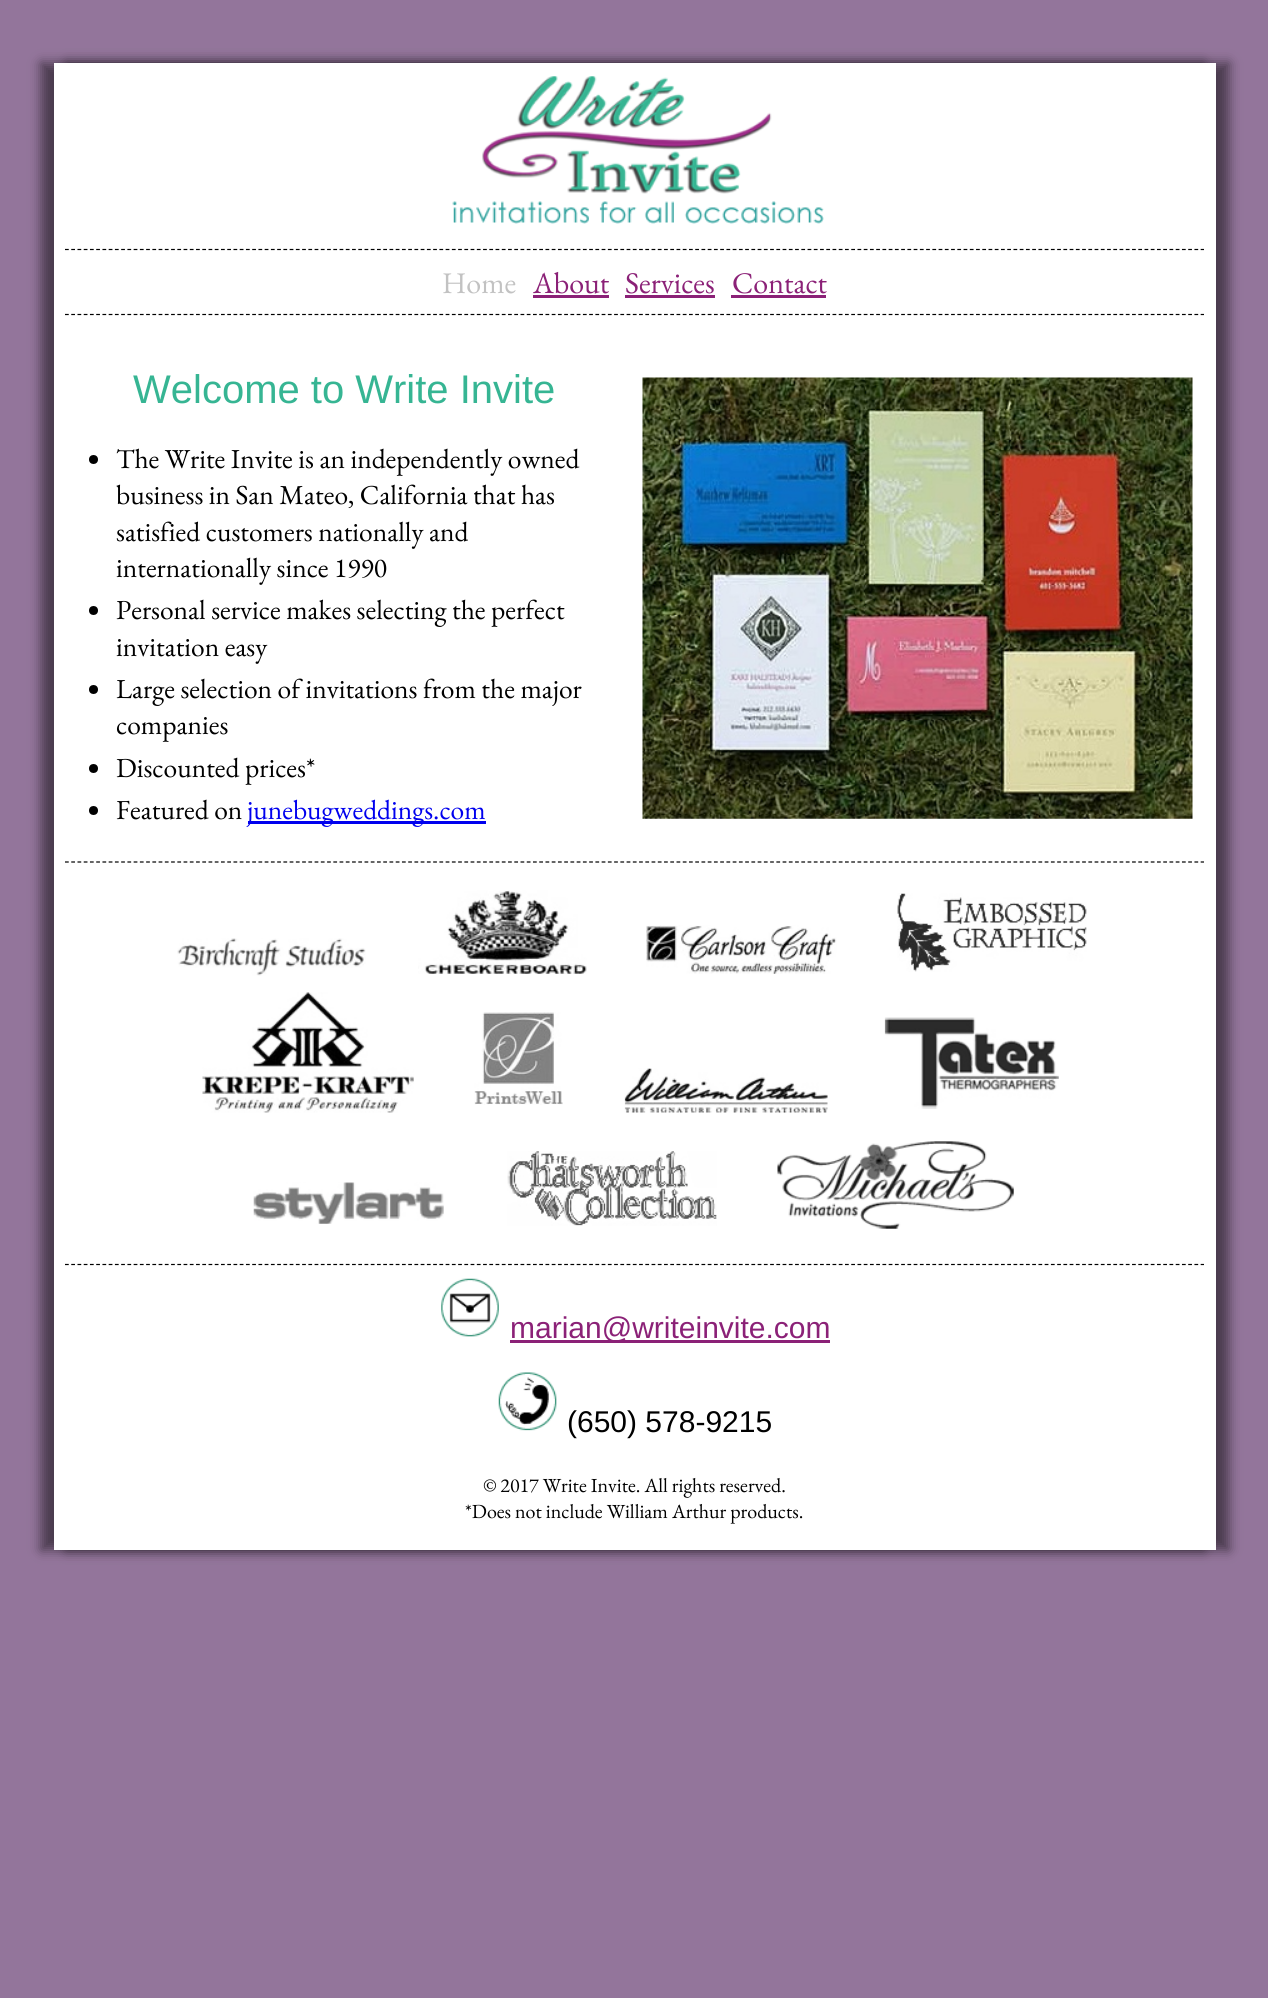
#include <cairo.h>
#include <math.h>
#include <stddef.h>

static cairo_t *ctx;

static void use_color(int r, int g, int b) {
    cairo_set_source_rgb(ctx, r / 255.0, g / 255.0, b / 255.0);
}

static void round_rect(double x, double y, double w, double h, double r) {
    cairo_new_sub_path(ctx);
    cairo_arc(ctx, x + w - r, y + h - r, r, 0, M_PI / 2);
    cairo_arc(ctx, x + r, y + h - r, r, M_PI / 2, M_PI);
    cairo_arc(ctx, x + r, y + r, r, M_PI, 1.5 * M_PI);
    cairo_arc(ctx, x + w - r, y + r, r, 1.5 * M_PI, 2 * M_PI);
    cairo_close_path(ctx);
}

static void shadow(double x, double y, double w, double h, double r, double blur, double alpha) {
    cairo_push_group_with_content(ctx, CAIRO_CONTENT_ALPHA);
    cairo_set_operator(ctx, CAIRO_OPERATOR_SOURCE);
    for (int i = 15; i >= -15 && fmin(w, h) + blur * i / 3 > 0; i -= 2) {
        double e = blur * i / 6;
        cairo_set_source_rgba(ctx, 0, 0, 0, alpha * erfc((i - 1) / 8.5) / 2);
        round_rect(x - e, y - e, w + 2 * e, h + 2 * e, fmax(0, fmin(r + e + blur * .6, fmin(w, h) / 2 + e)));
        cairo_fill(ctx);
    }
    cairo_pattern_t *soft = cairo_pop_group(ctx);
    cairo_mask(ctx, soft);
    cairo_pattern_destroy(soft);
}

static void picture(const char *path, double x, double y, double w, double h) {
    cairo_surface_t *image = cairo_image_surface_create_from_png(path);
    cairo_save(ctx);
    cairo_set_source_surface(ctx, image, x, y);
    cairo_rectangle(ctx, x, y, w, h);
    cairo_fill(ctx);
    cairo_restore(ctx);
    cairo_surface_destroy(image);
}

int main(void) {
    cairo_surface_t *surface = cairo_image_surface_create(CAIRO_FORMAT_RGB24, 1268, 1998);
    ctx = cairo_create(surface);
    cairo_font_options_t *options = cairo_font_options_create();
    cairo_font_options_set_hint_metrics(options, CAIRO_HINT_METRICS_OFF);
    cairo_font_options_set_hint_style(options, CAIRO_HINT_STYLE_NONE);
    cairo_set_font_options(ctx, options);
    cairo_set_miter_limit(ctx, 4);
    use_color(147, 117, 155);
    cairo_paint(ctx);
    use_color(0, 0, 0);
    shadow(41, 63, 1163, 1487, 0, 6, 0.5);
    shadow(66, 63, 1163, 1487, 0, 6, 0.5);
    use_color(255, 255, 255);
    cairo_rectangle(ctx, 54, 63, 1162, 1487);
    cairo_fill(ctx);
    picture("img1.png", 452, 76, 372, 148);
    cairo_new_path(ctx);
    cairo_move_to(ctx, 65, 249.5);
    cairo_line_to(ctx, 1204, 249.5);
    use_color(0, 0, 0);
    cairo_set_line_width(ctx, 1.2);
    cairo_set_dash(ctx, (double[]){3.75, 2.49}, 2, 0);
    cairo_stroke(ctx);
    cairo_new_path(ctx);
    cairo_move_to(ctx, 65, 314.5);
    cairo_line_to(ctx, 1204, 314.5);
    cairo_stroke(ctx);
    cairo_select_font_face(ctx, "EB Garamond", CAIRO_FONT_SLANT_NORMAL, CAIRO_FONT_WEIGHT_NORMAL);
    cairo_set_font_size(ctx, 30);
    use_color(194, 194, 194);
    cairo_move_to(ctx, 442, 293);
    cairo_show_text(ctx, "Home");
    use_color(139, 33, 119);
    cairo_move_to(ctx, 533, 293);
    cairo_show_text(ctx, "About");
    cairo_rectangle(ctx, 533, 295, 76, 3);
    cairo_fill(ctx);
    cairo_move_to(ctx, 625, 293);
    cairo_show_text(ctx, "Services");
    cairo_rectangle(ctx, 625, 295, 90, 3);
    cairo_fill(ctx);
    cairo_move_to(ctx, 732, 293);
    cairo_show_text(ctx, "Contact");
    cairo_rectangle(ctx, 731, 295, 95, 3);
    cairo_fill(ctx);
    cairo_select_font_face(ctx, "Liberation Sans", CAIRO_FONT_SLANT_NORMAL, CAIRO_FONT_WEIGHT_NORMAL);
    cairo_set_font_size(ctx, 40);
    use_color(54, 181, 147);
    cairo_move_to(ctx, 133, 403);
    cairo_show_text(ctx, "Welcome to Write Invite");
    use_color(0, 0, 0);
    cairo_new_path(ctx);
    cairo_arc(ctx, 93.5, 459.5, 4.5, 0, 2 * M_PI);
    cairo_fill(ctx);
    cairo_select_font_face(ctx, "EB Garamond", CAIRO_FONT_SLANT_NORMAL, CAIRO_FONT_WEIGHT_NORMAL);
    cairo_set_font_size(ctx, 27.5);
    cairo_move_to(ctx, 116, 468);
    cairo_show_text(ctx, "The Write Invite is an independently owned");
    cairo_move_to(ctx, 116, 504);
    cairo_show_text(ctx, "business in San Mateo, California that has");
    cairo_move_to(ctx, 116, 541);
    cairo_show_text(ctx, "satisfied customers nationally and");
    cairo_move_to(ctx, 116, 577);
    cairo_show_text(ctx, "internationally since 1990");
    cairo_new_path(ctx);
    cairo_arc(ctx, 93.5, 610.5, 4.5, 0, 2 * M_PI);
    cairo_fill(ctx);
    cairo_move_to(ctx, 116, 619);
    cairo_show_text(ctx, "Personal service makes selecting the perfect");
    cairo_move_to(ctx, 116, 656);
    cairo_show_text(ctx, "invitation easy");
    cairo_new_path(ctx);
    cairo_arc(ctx, 93.5, 689.5, 4.5, 0, 2 * M_PI);
    cairo_fill(ctx);
    cairo_move_to(ctx, 116, 698);
    cairo_show_text(ctx, "Large selection of invitations from the major");
    cairo_move_to(ctx, 116, 734);
    cairo_show_text(ctx, "companies");
    cairo_new_path(ctx);
    cairo_arc(ctx, 93.5, 768.5, 4.5, 0, 2 * M_PI);
    cairo_fill(ctx);
    cairo_move_to(ctx, 116, 777);
    cairo_show_text(ctx, "Discounted prices*");
    cairo_new_path(ctx);
    cairo_arc(ctx, 93.5, 810.5, 4.5, 0, 2 * M_PI);
    cairo_fill(ctx);
    cairo_move_to(ctx, 116, 819);
    cairo_show_text(ctx, "Featured on");
    use_color(0, 0, 238);
    cairo_rectangle(ctx, 248, 821, 238, 3);
    cairo_fill(ctx);
    cairo_move_to(ctx, 247, 819);
    cairo_show_text(ctx, "junebugweddings.com");
    picture("img2.png", 642, 377, 551, 442);
    cairo_new_path(ctx);
    cairo_move_to(ctx, 65, 862);
    cairo_line_to(ctx, 1204, 862);
    use_color(0, 0, 0);
    cairo_stroke(ctx);
    cairo_new_path(ctx);
    cairo_move_to(ctx, 65, 1264.5);
    cairo_line_to(ctx, 1204, 1264.5);
    cairo_stroke(ctx);
    picture("img3.png", 177, 938, 189, 38);
    picture("img4.png", 418, 890, 169, 84);
    picture("img5.png", 646, 925, 191, 49);
    picture("img6.png", 897, 893, 190, 79);
    picture("img7.png", 202, 992, 212, 121);
    picture("img8.png", 474, 1012, 89, 93);
    picture("img9.png", 624, 1068, 204, 45);
    picture("img10.png", 884, 1017, 175, 92);
    picture("img11.png", 253, 1182, 191, 42);
    picture("img12.png", 507, 1151, 210, 75);
    picture("img13.png", 777, 1141, 237, 88);
    picture("img14.png", 441, 1278, 58, 59);
    use_color(139, 33, 119);
    cairo_rectangle(ctx, 510, 1340, 320, 3);
    cairo_fill(ctx);
    cairo_select_font_face(ctx, "Liberation Sans", CAIRO_FONT_SLANT_NORMAL, CAIRO_FONT_WEIGHT_NORMAL);
    cairo_set_font_size(ctx, 30);
    cairo_move_to(ctx, 510, 1338);
    cairo_show_text(ctx, "marian@writeinvite.com");
    picture("img15.png", 498, 1372, 59, 59);
    use_color(0, 0, 0);
    cairo_move_to(ctx, 567, 1432);
    cairo_show_text(ctx, "(650) 578-9215");
    cairo_select_font_face(ctx, "EB Garamond", CAIRO_FONT_SLANT_NORMAL, CAIRO_FONT_WEIGHT_NORMAL);
    cairo_set_font_size(ctx, 20);
    cairo_move_to(ctx, 483, 1492);
    cairo_show_text(ctx, "© 2017 Write Invite. All rights reserved.");
    cairo_move_to(ctx, 465, 1518);
    cairo_show_text(ctx, "*Does not include William Arthur products.");
    cairo_surface_write_to_png(surface, "result.png");
    cairo_font_options_destroy(options);
    cairo_destroy(ctx);
    cairo_surface_destroy(surface);
    return 0;
}
